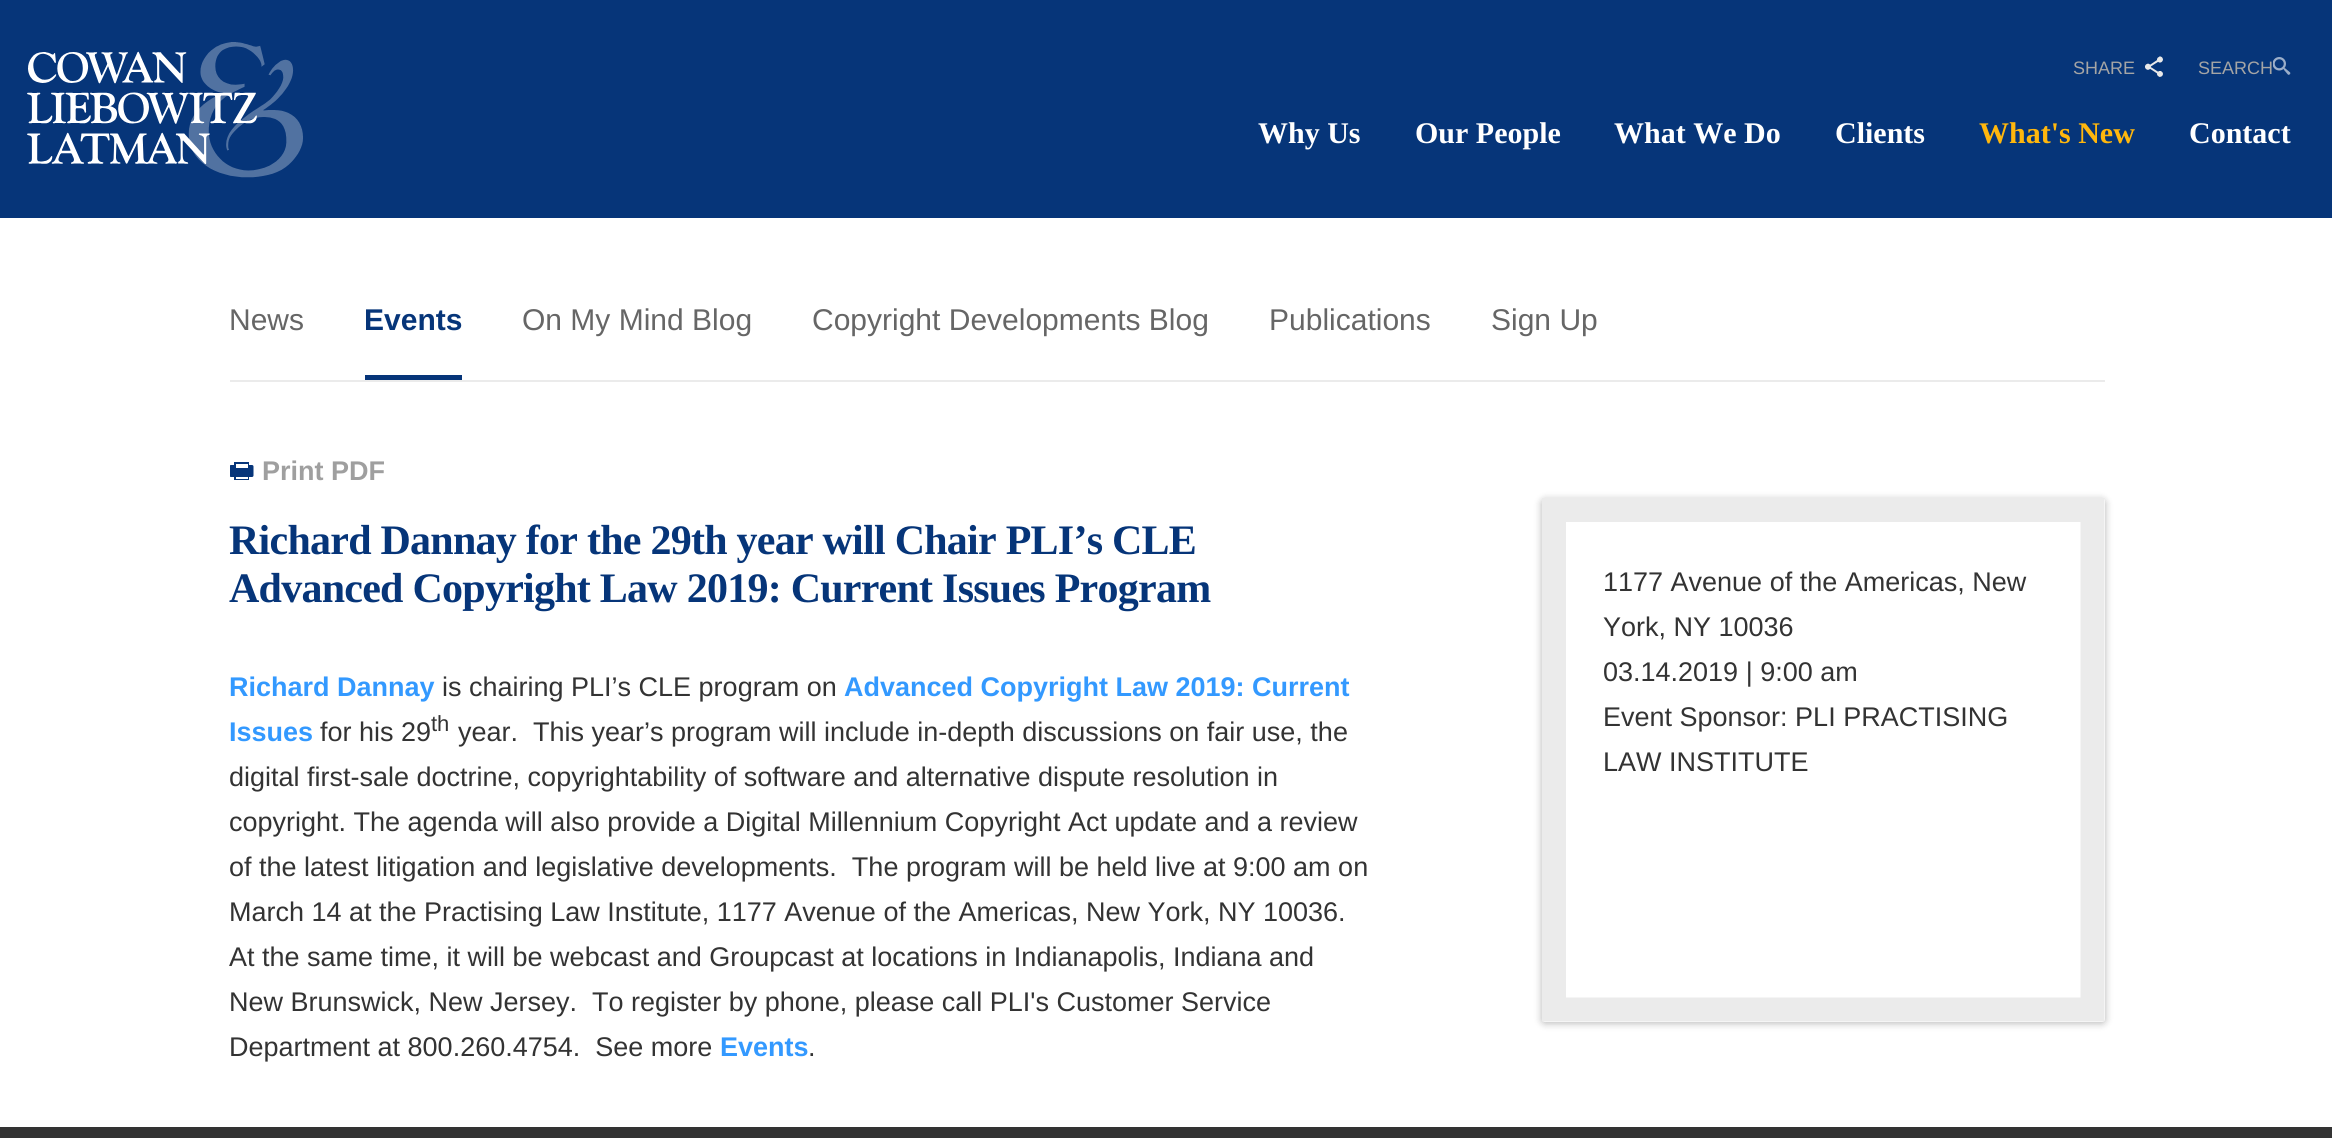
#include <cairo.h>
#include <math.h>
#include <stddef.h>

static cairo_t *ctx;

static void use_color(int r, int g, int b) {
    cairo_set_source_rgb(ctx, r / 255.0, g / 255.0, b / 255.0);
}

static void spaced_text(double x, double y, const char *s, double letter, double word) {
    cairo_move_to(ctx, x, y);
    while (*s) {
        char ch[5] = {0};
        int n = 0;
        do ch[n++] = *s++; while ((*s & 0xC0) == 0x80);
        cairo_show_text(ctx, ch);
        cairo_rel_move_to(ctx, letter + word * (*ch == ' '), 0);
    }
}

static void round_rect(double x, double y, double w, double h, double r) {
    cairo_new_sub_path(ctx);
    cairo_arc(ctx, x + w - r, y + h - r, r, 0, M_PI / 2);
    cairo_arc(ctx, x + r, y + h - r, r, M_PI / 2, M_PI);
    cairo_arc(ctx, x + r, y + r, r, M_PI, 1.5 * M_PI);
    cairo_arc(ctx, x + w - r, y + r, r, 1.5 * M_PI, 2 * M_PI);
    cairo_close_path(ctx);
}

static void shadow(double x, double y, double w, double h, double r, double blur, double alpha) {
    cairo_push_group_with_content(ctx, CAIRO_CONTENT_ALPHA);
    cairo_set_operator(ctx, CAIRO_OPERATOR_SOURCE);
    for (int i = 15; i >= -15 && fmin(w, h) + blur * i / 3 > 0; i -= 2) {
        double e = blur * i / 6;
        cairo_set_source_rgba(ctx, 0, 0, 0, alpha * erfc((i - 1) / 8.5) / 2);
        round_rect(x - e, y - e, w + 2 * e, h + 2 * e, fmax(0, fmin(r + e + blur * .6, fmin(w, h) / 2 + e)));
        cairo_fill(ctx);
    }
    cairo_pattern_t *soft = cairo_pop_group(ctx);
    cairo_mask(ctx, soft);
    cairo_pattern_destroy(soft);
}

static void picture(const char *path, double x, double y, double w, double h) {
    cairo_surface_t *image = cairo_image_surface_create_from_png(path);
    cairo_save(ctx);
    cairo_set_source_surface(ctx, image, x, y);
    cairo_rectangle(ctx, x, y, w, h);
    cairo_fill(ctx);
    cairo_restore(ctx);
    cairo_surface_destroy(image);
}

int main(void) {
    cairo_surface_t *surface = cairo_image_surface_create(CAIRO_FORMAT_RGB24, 2332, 1138);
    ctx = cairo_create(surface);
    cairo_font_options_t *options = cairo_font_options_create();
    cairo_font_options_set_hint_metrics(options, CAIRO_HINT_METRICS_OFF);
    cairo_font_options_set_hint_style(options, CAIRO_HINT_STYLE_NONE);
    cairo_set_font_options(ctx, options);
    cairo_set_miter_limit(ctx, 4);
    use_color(255, 255, 255);
    cairo_paint(ctx);
    use_color(6, 53, 121);
    cairo_rectangle(ctx, 0, 0, 2332, 218);
    cairo_fill(ctx);
    picture("img1.png", 27, 42, 276, 136);
    cairo_select_font_face(ctx, "Liberation Sans", CAIRO_FONT_SLANT_NORMAL, CAIRO_FONT_WEIGHT_NORMAL);
    cairo_set_font_size(ctx, 18);
    use_color(165, 165, 165);
    cairo_move_to(ctx, 2073, 74);
    cairo_show_text(ctx, "SHARE");
    picture("img2.png", 2145, 56, 18, 21);
    picture("img3.png", 2273, 57, 18, 18);
    cairo_move_to(ctx, 2198, 74);
    cairo_show_text(ctx, "SEARCH");
    cairo_select_font_face(ctx, "Liberation Serif", CAIRO_FONT_SLANT_NORMAL, CAIRO_FONT_WEIGHT_BOLD);
    cairo_set_font_size(ctx, 30);
    use_color(255, 255, 255);
    cairo_move_to(ctx, 1258, 143);
    cairo_show_text(ctx, "Why Us");
    cairo_move_to(ctx, 1415, 143);
    cairo_show_text(ctx, "Our People");
    cairo_move_to(ctx, 1614, 143);
    cairo_show_text(ctx, "What We Do");
    cairo_move_to(ctx, 1835, 143);
    cairo_show_text(ctx, "Clients");
    use_color(255, 183, 13);
    cairo_move_to(ctx, 1979, 143);
    cairo_show_text(ctx, "What's New");
    use_color(255, 255, 255);
    cairo_move_to(ctx, 2189, 143);
    cairo_show_text(ctx, "Contact");
    use_color(235, 235, 235);
    cairo_rectangle(ctx, 230, 380, 1875, 2);
    cairo_fill(ctx);
    cairo_select_font_face(ctx, "Liberation Sans", CAIRO_FONT_SLANT_NORMAL, CAIRO_FONT_WEIGHT_NORMAL);
    use_color(102, 102, 102);
    cairo_move_to(ctx, 229, 330);
    cairo_show_text(ctx, "News");
    use_color(6, 53, 121);
    cairo_rectangle(ctx, 365, 375, 97, 5);
    cairo_fill(ctx);
    cairo_select_font_face(ctx, "Liberation Sans", CAIRO_FONT_SLANT_NORMAL, CAIRO_FONT_WEIGHT_BOLD);
    cairo_move_to(ctx, 364, 330);
    cairo_show_text(ctx, "Events");
    cairo_select_font_face(ctx, "Liberation Sans", CAIRO_FONT_SLANT_NORMAL, CAIRO_FONT_WEIGHT_NORMAL);
    use_color(102, 102, 102);
    cairo_move_to(ctx, 522, 330);
    cairo_show_text(ctx, "On My Mind Blog");
    cairo_move_to(ctx, 812, 330);
    cairo_show_text(ctx, "Copyright Developments Blog");
    cairo_move_to(ctx, 1269, 330);
    cairo_show_text(ctx, "Publications");
    cairo_move_to(ctx, 1491, 330);
    cairo_show_text(ctx, "Sign Up");
    picture("img4.png", 230, 462, 24, 18);
    cairo_select_font_face(ctx, "Liberation Sans", CAIRO_FONT_SLANT_NORMAL, CAIRO_FONT_WEIGHT_BOLD);
    cairo_set_font_size(ctx, 27);
    use_color(159, 159, 159);
    cairo_move_to(ctx, 262, 480);
    cairo_show_text(ctx, "Print PDF");
    cairo_select_font_face(ctx, "Liberation Serif", CAIRO_FONT_SLANT_NORMAL, CAIRO_FONT_WEIGHT_BOLD);
    cairo_set_font_size(ctx, 42);
    use_color(6, 53, 121);
    spaced_text(229, 554, "Richard Dannay for the 29th year will Chair PLI’s CLE", -0.75, 0);
    spaced_text(229, 602, "Advanced Copyright Law 2019: Current Issues Program", -0.75, 0);
    cairo_select_font_face(ctx, "Liberation Sans", CAIRO_FONT_SLANT_NORMAL, CAIRO_FONT_WEIGHT_BOLD);
    cairo_set_font_size(ctx, 27);
    use_color(51, 153, 255);
    cairo_move_to(ctx, 229, 696);
    cairo_show_text(ctx, "Richard Dannay");
    cairo_select_font_face(ctx, "Liberation Sans", CAIRO_FONT_SLANT_NORMAL, CAIRO_FONT_WEIGHT_NORMAL);
    use_color(51, 51, 51);
    cairo_move_to(ctx, 442, 696);
    cairo_show_text(ctx, "is chairing PLI’s CLE program on");
    cairo_select_font_face(ctx, "Liberation Sans", CAIRO_FONT_SLANT_NORMAL, CAIRO_FONT_WEIGHT_BOLD);
    use_color(51, 153, 255);
    cairo_move_to(ctx, 844, 696);
    cairo_show_text(ctx, "Advanced Copyright Law 2019: Current");
    cairo_move_to(ctx, 229, 741);
    cairo_show_text(ctx, "Issues");
    cairo_select_font_face(ctx, "Liberation Sans", CAIRO_FONT_SLANT_NORMAL, CAIRO_FONT_WEIGHT_NORMAL);
    use_color(51, 51, 51);
    cairo_move_to(ctx, 320, 741);
    cairo_show_text(ctx, "for his 29");
    cairo_set_font_size(ctx, 22);
    cairo_move_to(ctx, 431, 731);
    cairo_show_text(ctx, "th");
    cairo_set_font_size(ctx, 27);
    cairo_move_to(ctx, 458, 741);
    cairo_show_text(ctx, "year.  This year’s program will include in-depth discussions on fair use, the");
    cairo_move_to(ctx, 229, 786);
    cairo_show_text(ctx, "digital first-sale doctrine, copyrightability of software and alternative dispute resolution in");
    cairo_move_to(ctx, 229, 831);
    cairo_show_text(ctx, "copyright. The agenda will also provide a Digital Millennium Copyright Act update and a review");
    cairo_move_to(ctx, 229, 876);
    cairo_show_text(ctx, "of the latest litigation and legislative developments.  The program will be held live at 9:00 am on");
    cairo_move_to(ctx, 229, 921);
    cairo_show_text(ctx, "March 14 at the Practising Law Institute, 1177 Avenue of the Americas, New York, NY 10036.");
    cairo_move_to(ctx, 229, 966);
    cairo_show_text(ctx, "At the same time, it will be webcast and Groupcast at locations in Indianapolis, Indiana and");
    cairo_move_to(ctx, 229, 1011);
    cairo_show_text(ctx, "New Brunswick, New Jersey.  To register by phone, please call PLI's Customer Service");
    cairo_move_to(ctx, 229, 1056);
    cairo_show_text(ctx, "Department at 800.260.4754.  See more");
    cairo_select_font_face(ctx, "Liberation Sans", CAIRO_FONT_SLANT_NORMAL, CAIRO_FONT_WEIGHT_BOLD);
    use_color(51, 153, 255);
    cairo_move_to(ctx, 720, 1056);
    cairo_show_text(ctx, "Events");
    cairo_select_font_face(ctx, "Liberation Sans", CAIRO_FONT_SLANT_NORMAL, CAIRO_FONT_WEIGHT_NORMAL);
    use_color(51, 51, 51);
    cairo_move_to(ctx, 808, 1056);
    cairo_show_text(ctx, ".");
    use_color(0, 0, 0);
    shadow(1542, 500, 563, 523, 3, 4, 0.3);
    use_color(255, 255, 255);
    round_rect(1542, 498, 563, 524, 3);
    cairo_fill(ctx);
    cairo_new_path(ctx);
    cairo_move_to(ctx, 1554, 510);
    cairo_line_to(ctx, 2092.5, 510);
    cairo_line_to(ctx, 2092.5, 1009.5);
    cairo_line_to(ctx, 1554, 1009.5);
    cairo_close_path(ctx);
    use_color(235, 235, 235);
    cairo_set_line_width(ctx, 24);
    cairo_stroke(ctx);
    use_color(51, 51, 51);
    cairo_move_to(ctx, 1603, 591);
    cairo_show_text(ctx, "1177 Avenue of the Americas, New");
    cairo_move_to(ctx, 1603, 636);
    cairo_show_text(ctx, "York, NY 10036");
    cairo_move_to(ctx, 1603, 681);
    cairo_show_text(ctx, "03.14.2019 | 9:00 am");
    cairo_move_to(ctx, 1603, 726);
    cairo_show_text(ctx, "Event Sponsor: PLI PRACTISING");
    cairo_move_to(ctx, 1603, 771);
    cairo_show_text(ctx, "LAW INSTITUTE");
    cairo_rectangle(ctx, 0, 1127, 2332, 11);
    cairo_fill(ctx);
    cairo_surface_write_to_png(surface, "result.png");
    cairo_font_options_destroy(options);
    cairo_destroy(ctx);
    cairo_surface_destroy(surface);
    return 0;
}
